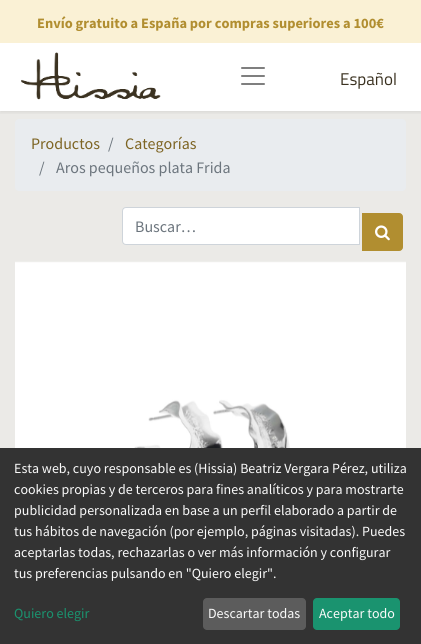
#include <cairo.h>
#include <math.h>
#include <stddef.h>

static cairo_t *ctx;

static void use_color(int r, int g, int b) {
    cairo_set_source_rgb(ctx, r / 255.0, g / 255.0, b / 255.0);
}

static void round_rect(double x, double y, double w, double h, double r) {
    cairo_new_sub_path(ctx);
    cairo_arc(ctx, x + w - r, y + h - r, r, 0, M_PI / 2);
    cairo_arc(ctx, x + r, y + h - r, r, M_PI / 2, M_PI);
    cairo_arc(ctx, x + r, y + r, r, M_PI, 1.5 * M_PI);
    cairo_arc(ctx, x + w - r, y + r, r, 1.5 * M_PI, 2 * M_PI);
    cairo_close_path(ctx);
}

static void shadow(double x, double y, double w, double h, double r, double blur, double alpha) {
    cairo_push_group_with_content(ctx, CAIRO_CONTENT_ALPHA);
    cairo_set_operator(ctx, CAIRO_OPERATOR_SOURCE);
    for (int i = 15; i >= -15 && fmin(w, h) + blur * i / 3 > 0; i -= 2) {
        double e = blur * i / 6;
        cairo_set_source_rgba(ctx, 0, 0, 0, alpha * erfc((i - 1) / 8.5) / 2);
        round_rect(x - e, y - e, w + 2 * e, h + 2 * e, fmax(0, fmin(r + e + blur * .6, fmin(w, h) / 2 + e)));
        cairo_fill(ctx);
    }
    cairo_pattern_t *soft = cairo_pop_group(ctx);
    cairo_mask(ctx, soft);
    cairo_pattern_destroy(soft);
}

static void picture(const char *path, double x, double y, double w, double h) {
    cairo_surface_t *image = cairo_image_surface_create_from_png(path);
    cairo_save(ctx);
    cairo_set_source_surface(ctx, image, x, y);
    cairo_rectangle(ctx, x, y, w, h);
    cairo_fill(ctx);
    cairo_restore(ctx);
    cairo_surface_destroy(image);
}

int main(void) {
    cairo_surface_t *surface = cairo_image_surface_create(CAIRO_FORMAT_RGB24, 421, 644);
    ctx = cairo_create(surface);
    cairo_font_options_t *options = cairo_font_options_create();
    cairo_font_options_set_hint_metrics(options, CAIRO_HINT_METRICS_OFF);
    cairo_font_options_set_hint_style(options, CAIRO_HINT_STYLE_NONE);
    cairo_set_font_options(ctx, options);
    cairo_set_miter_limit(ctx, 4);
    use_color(255, 255, 255);
    cairo_paint(ctx);
    use_color(250, 241, 213);
    cairo_rectangle(ctx, 0, 0, 421, 43);
    cairo_fill(ctx);
    cairo_select_font_face(ctx, "Source Sans Pro", CAIRO_FONT_SLANT_NORMAL, CAIRO_FONT_WEIGHT_BOLD);
    cairo_set_font_size(ctx, 14.4);
    use_color(177, 142, 48);
    cairo_move_to(ctx, 37, 28);
    cairo_show_text(ctx, "Envío gratuito a España por compras superiores a 100€");
    use_color(235, 234, 231);
    cairo_rectangle(ctx, 0, 111, 421, 337);
    cairo_fill(ctx);
    use_color(233, 236, 239);
    round_rect(15, 119, 391, 72, 4);
    cairo_fill(ctx);
    cairo_save(ctx);
    cairo_rectangle(ctx, 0, 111, 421, 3);
    cairo_clip(ctx);
    use_color(0, 0, 0);
    shadow(0, 45, 421, 68, 0, 2, 0.07);
    cairo_restore(ctx);
    picture("img1.png", 21, 52, 140, 48);
    picture("img2.png", 241, 67, 24, 18);
    cairo_select_font_face(ctx, "Titillium Web", CAIRO_FONT_SLANT_NORMAL, CAIRO_FONT_WEIGHT_NORMAL);
    cairo_set_font_size(ctx, 17);
    use_color(59, 50, 33);
    cairo_move_to(ctx, 340, 85);
    cairo_show_text(ctx, "Español");
    cairo_select_font_face(ctx, "Source Sans Pro", CAIRO_FONT_SLANT_NORMAL, CAIRO_FONT_WEIGHT_NORMAL);
    cairo_set_font_size(ctx, 16);
    use_color(125, 100, 34);
    cairo_move_to(ctx, 31, 149);
    cairo_show_text(ctx, "Productos");
    use_color(108, 117, 125);
    cairo_move_to(ctx, 108, 149);
    cairo_show_text(ctx, "/");
    use_color(125, 100, 34);
    cairo_move_to(ctx, 125, 149);
    cairo_show_text(ctx, "Categorías");
    use_color(108, 117, 125);
    cairo_move_to(ctx, 39, 173);
    cairo_show_text(ctx, "/");
    cairo_move_to(ctx, 56, 173);
    cairo_show_text(ctx, "Aros pequeños plata Frida");
    use_color(255, 255, 255);
    cairo_new_path(ctx);
    cairo_move_to(ctx, 126, 207.5);
    cairo_line_to(ctx, 359.5, 207.5);
    cairo_line_to(ctx, 359.5, 244.5);
    cairo_line_to(ctx, 126, 244.5);
    cairo_curve_to(ctx, 124, 244.5, 122.5, 243, 122.5, 241);
    cairo_line_to(ctx, 122.5, 211);
    cairo_curve_to(ctx, 122.5, 209, 124, 207.5, 126, 207.5);
    cairo_close_path(ctx);
    cairo_fill_preserve(ctx);
    use_color(206, 212, 218);
    cairo_set_line_width(ctx, 1);
    cairo_stroke(ctx);
    use_color(108, 117, 125);
    cairo_move_to(ctx, 135, 232);
    cairo_show_text(ctx, "Buscar…");
    use_color(177, 142, 48);
    cairo_new_path(ctx);
    cairo_move_to(ctx, 362.5, 213.5);
    cairo_line_to(ctx, 399, 213.5);
    cairo_curve_to(ctx, 401, 213.5, 402.5, 215, 402.5, 217);
    cairo_line_to(ctx, 402.5, 247);
    cairo_curve_to(ctx, 402.5, 249, 401, 250.5, 399, 250.5);
    cairo_line_to(ctx, 362.5, 250.5);
    cairo_close_path(ctx);
    cairo_fill_preserve(ctx);
    cairo_stroke(ctx);
    picture("img3.png", 375, 225, 15, 16);
    picture("img4.png", 15, 261, 391, 187);
    use_color(51, 51, 51);
    cairo_rectangle(ctx, 0, 448, 421, 196);
    cairo_fill(ctx);
    cairo_set_font_size(ctx, 14);
    use_color(250, 250, 250);
    cairo_move_to(ctx, 14, 473);
    cairo_show_text(ctx, "Esta web, cuyo responsable es (Hissia) Beatriz Vergara Pérez, utiliza");
    cairo_move_to(ctx, 14, 494);
    cairo_show_text(ctx, "cookies propias y de terceros para fines analíticos y para mostrarte");
    cairo_move_to(ctx, 14, 515);
    cairo_show_text(ctx, "publicidad personalizada en base a un perfil elaborado a partir de");
    cairo_move_to(ctx, 14, 536);
    cairo_show_text(ctx, "tus hábitos de navegación (por ejemplo, páginas visitadas). Puedes");
    cairo_move_to(ctx, 14, 557);
    cairo_show_text(ctx, "aceptarlas todas, rechazarlas o ver más información y configurar");
    cairo_move_to(ctx, 14, 578);
    cairo_show_text(ctx, "tus preferencias pulsando en \"Quiero elegir\".");
    use_color(26, 147, 111);
    cairo_move_to(ctx, 14, 618);
    cairo_show_text(ctx, "Quiero elegir");
    use_color(92, 92, 92);
    round_rect(203, 598, 103, 32, 4);
    cairo_fill(ctx);
    use_color(250, 250, 250);
    cairo_move_to(ctx, 208, 618);
    cairo_show_text(ctx, "Descartar todas");
    use_color(26, 147, 111);
    round_rect(313, 598, 87, 32, 4);
    cairo_fill(ctx);
    use_color(250, 250, 250);
    cairo_move_to(ctx, 319, 618);
    cairo_show_text(ctx, "Aceptar todo");
    cairo_surface_write_to_png(surface, "result.png");
    cairo_font_options_destroy(options);
    cairo_destroy(ctx);
    cairo_surface_destroy(surface);
    return 0;
}
